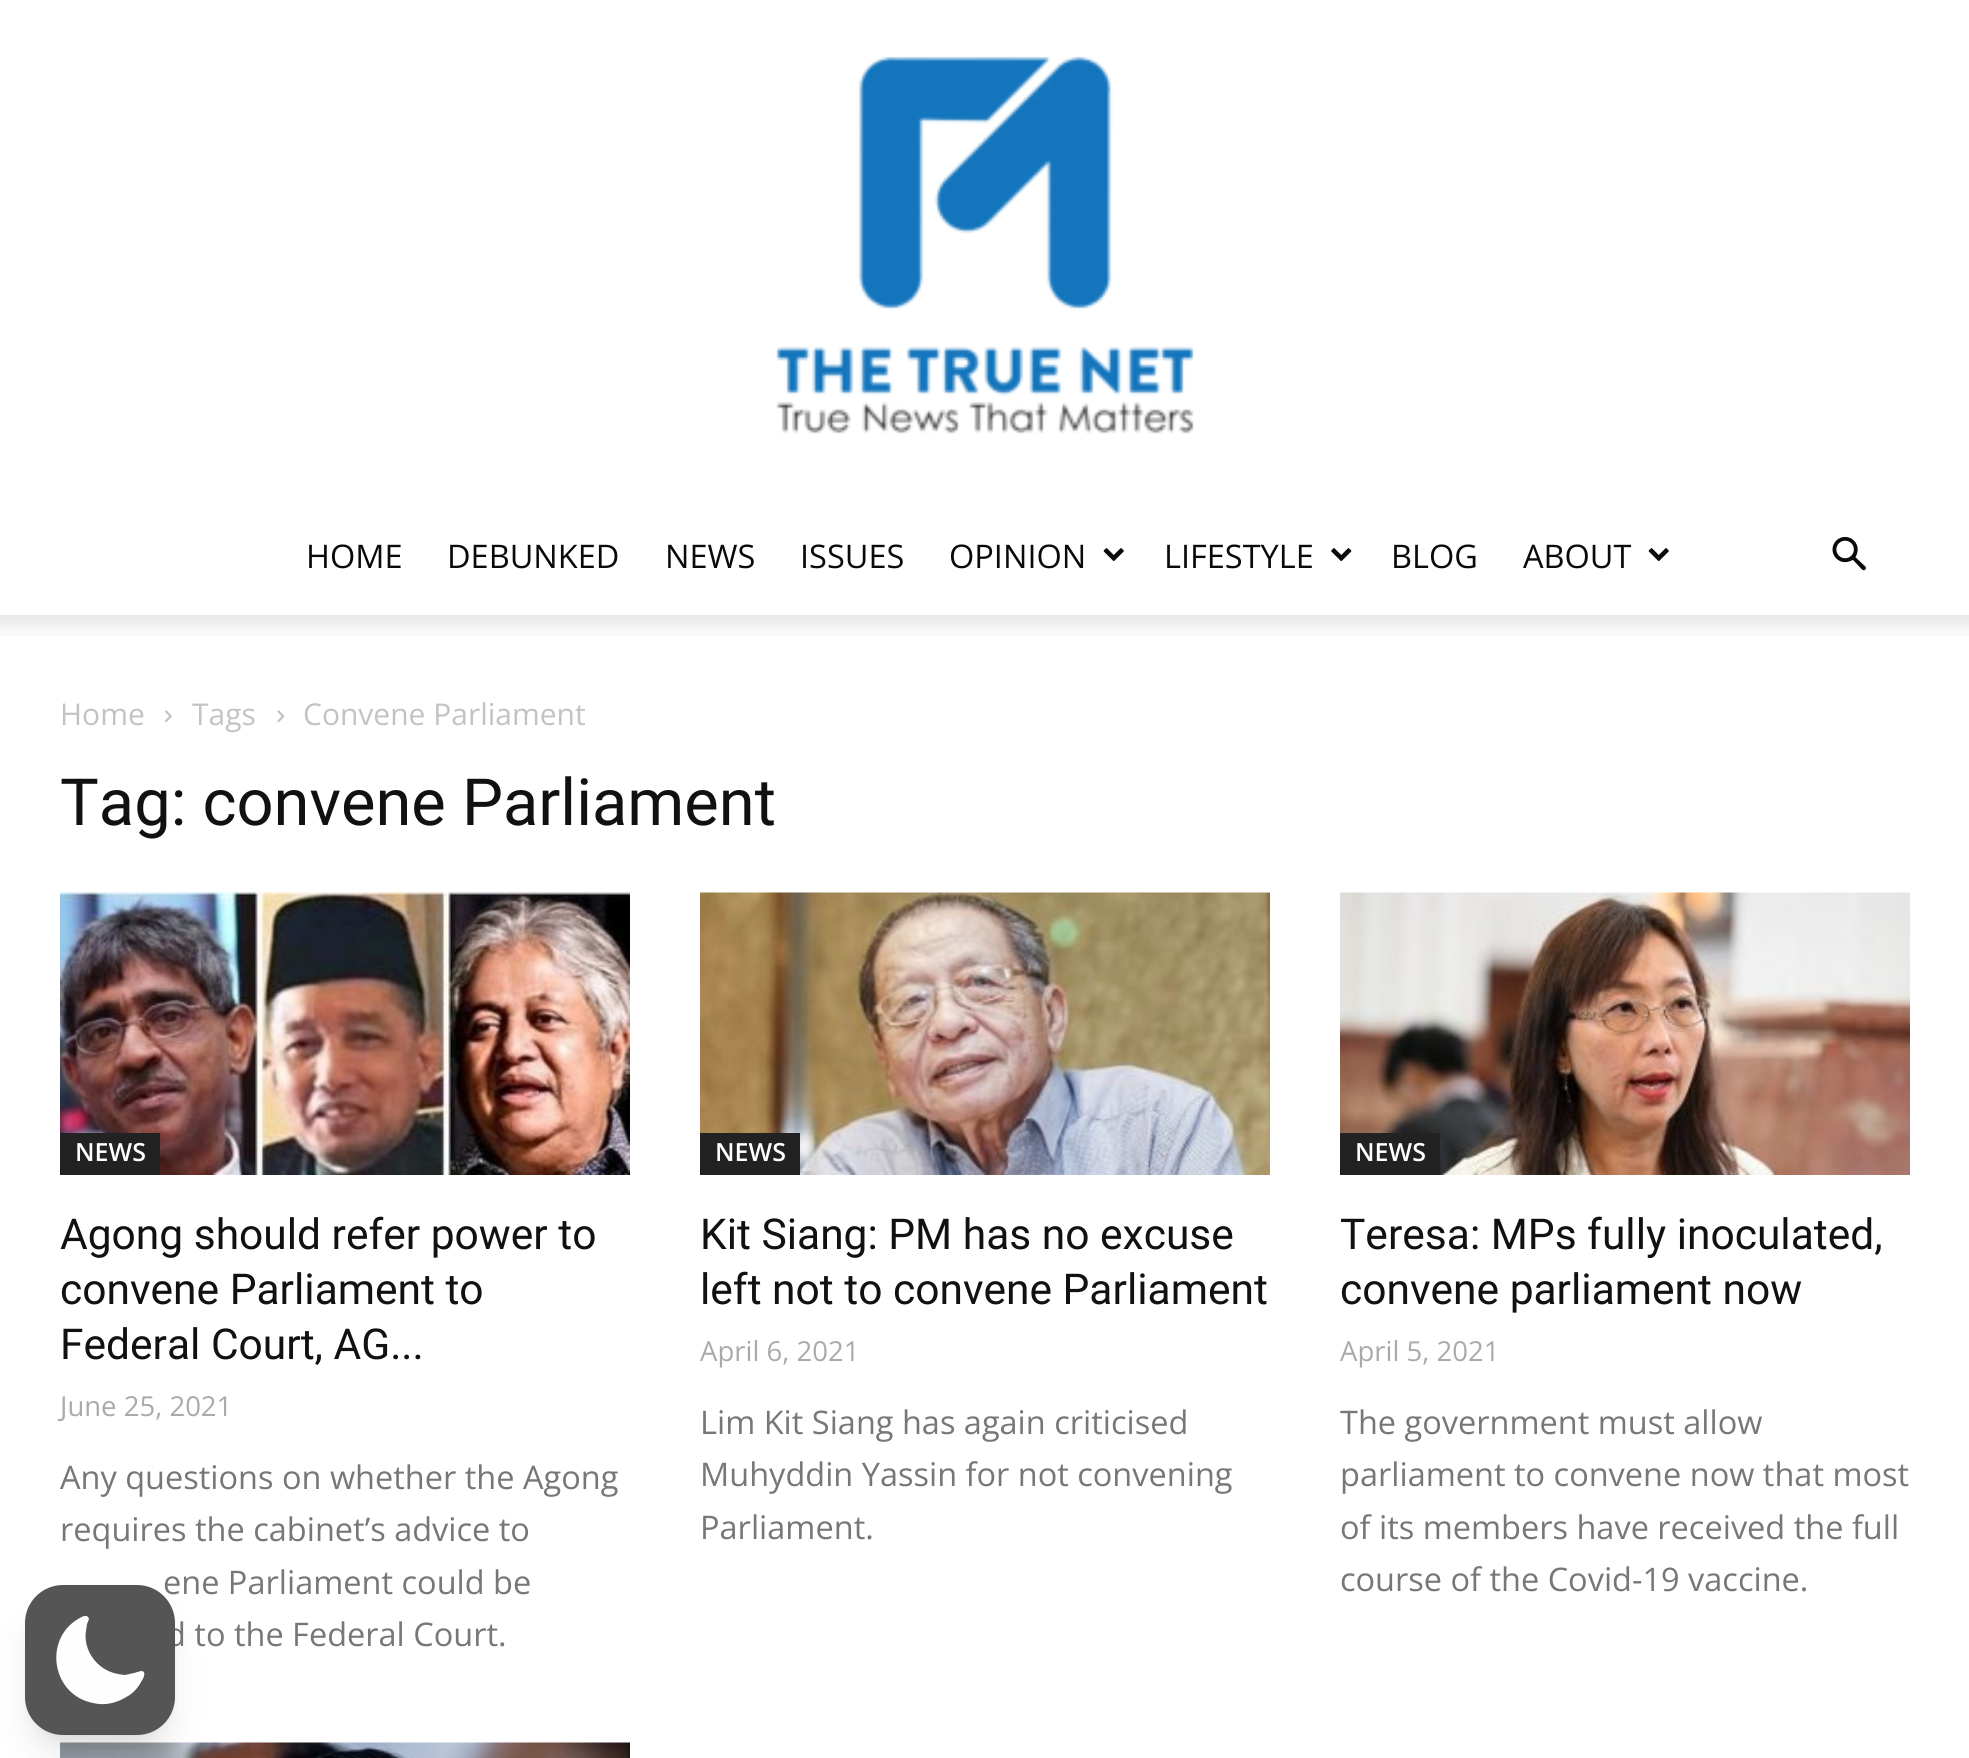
#include <cairo.h>
#include <math.h>
#include <stddef.h>

static cairo_t *ctx;

static void use_color(int r, int g, int b) {
    cairo_set_source_rgb(ctx, r / 255.0, g / 255.0, b / 255.0);
}

static void round_rect(double x, double y, double w, double h, double r) {
    cairo_new_sub_path(ctx);
    cairo_arc(ctx, x + w - r, y + h - r, r, 0, M_PI / 2);
    cairo_arc(ctx, x + r, y + h - r, r, M_PI / 2, M_PI);
    cairo_arc(ctx, x + r, y + r, r, M_PI, 1.5 * M_PI);
    cairo_arc(ctx, x + w - r, y + r, r, 1.5 * M_PI, 2 * M_PI);
    cairo_close_path(ctx);
}

static void shadow(double x, double y, double w, double h, double r, double blur, double alpha) {
    cairo_push_group_with_content(ctx, CAIRO_CONTENT_ALPHA);
    cairo_set_operator(ctx, CAIRO_OPERATOR_SOURCE);
    for (int i = 15; i >= -15 && fmin(w, h) + blur * i / 3 > 0; i -= 2) {
        double e = blur * i / 6;
        cairo_set_source_rgba(ctx, 0, 0, 0, alpha * erfc((i - 1) / 8.5) / 2);
        round_rect(x - e, y - e, w + 2 * e, h + 2 * e, fmax(0, fmin(r + e + blur * .6, fmin(w, h) / 2 + e)));
        cairo_fill(ctx);
    }
    cairo_pattern_t *soft = cairo_pop_group(ctx);
    cairo_mask(ctx, soft);
    cairo_pattern_destroy(soft);
}

static void picture(const char *path, double x, double y, double w, double h) {
    cairo_surface_t *image = cairo_image_surface_create_from_png(path);
    cairo_save(ctx);
    cairo_set_source_surface(ctx, image, x, y);
    cairo_rectangle(ctx, x, y, w, h);
    cairo_fill(ctx);
    cairo_restore(ctx);
    cairo_surface_destroy(image);
}

int main(void) {
    cairo_surface_t *surface = cairo_image_surface_create(CAIRO_FORMAT_RGB24, 1969, 1758);
    ctx = cairo_create(surface);
    cairo_font_options_t *options = cairo_font_options_create();
    cairo_font_options_set_hint_metrics(options, CAIRO_HINT_METRICS_OFF);
    cairo_font_options_set_hint_style(options, CAIRO_HINT_STYLE_NONE);
    cairo_set_font_options(ctx, options);
    cairo_set_miter_limit(ctx, 4);
    use_color(255, 255, 255);
    cairo_paint(ctx);
    picture("img1.png", 776, 56, 419, 378);
    cairo_select_font_face(ctx, "Open Sans", CAIRO_FONT_SLANT_NORMAL, CAIRO_FONT_WEIGHT_NORMAL);
    cairo_set_font_size(ctx, 32.5);
    use_color(10, 10, 10);
    cairo_move_to(ctx, 306, 568);
    cairo_show_text(ctx, "HOME");
    cairo_move_to(ctx, 447, 568);
    cairo_show_text(ctx, "DEBUNKED");
    cairo_move_to(ctx, 665, 568);
    cairo_show_text(ctx, "NEWS");
    cairo_move_to(ctx, 800, 568);
    cairo_show_text(ctx, "ISSUES");
    cairo_move_to(ctx, 949, 568);
    cairo_show_text(ctx, "OPINION");
    picture("img2.png", 1103, 548, 21, 13);
    cairo_move_to(ctx, 1164, 568);
    cairo_show_text(ctx, "LIFESTYLE");
    picture("img3.png", 1331, 548, 21, 13);
    cairo_move_to(ctx, 1391, 568);
    cairo_show_text(ctx, "BLOG");
    cairo_move_to(ctx, 1523, 568);
    cairo_show_text(ctx, "ABOUT");
    picture("img2.png", 1648, 548, 21, 13);
    picture("img4.png", 1832, 536, 34, 35);
    picture("img5.png", 0, 615, 1969, 21);
    cairo_set_font_size(ctx, 30);
    use_color(195, 195, 195);
    cairo_move_to(ctx, 60, 725);
    cairo_show_text(ctx, "Home");
    picture("img6.png", 165, 710, 7, 12);
    cairo_move_to(ctx, 192, 725);
    cairo_show_text(ctx, "Tags");
    picture("img7.png", 277, 710, 8, 12);
    cairo_move_to(ctx, 303, 725);
    cairo_show_text(ctx, "Convene Parliament");
    cairo_select_font_face(ctx, "Roboto", CAIRO_FONT_SLANT_NORMAL, CAIRO_FONT_WEIGHT_NORMAL);
    cairo_set_font_size(ctx, 65);
    use_color(17, 17, 17);
    cairo_move_to(ctx, 60, 825);
    cairo_show_text(ctx, "Tag: convene Parliament");
    picture("img8.png", 60, 892, 570, 283);
    use_color(34, 34, 34);
    cairo_rectangle(ctx, 60, 1133, 100, 42);
    cairo_fill(ctx);
    cairo_select_font_face(ctx, "Open Sans SemiBold", CAIRO_FONT_SLANT_NORMAL, CAIRO_FONT_WEIGHT_NORMAL);
    cairo_set_font_size(ctx, 25);
    use_color(255, 255, 255);
    cairo_move_to(ctx, 75, 1161);
    cairo_show_text(ctx, "NEWS");
    cairo_select_font_face(ctx, "Roboto", CAIRO_FONT_SLANT_NORMAL, CAIRO_FONT_WEIGHT_NORMAL);
    cairo_set_font_size(ctx, 42.5);
    use_color(17, 17, 17);
    cairo_move_to(ctx, 60, 1249);
    cairo_show_text(ctx, "Agong should refer power to");
    cairo_move_to(ctx, 60, 1304);
    cairo_show_text(ctx, "convene Parliament to");
    cairo_move_to(ctx, 60, 1359);
    cairo_show_text(ctx, "Federal Court, AG...");
    cairo_select_font_face(ctx, "Open Sans", CAIRO_FONT_SLANT_NORMAL, CAIRO_FONT_WEIGHT_NORMAL);
    cairo_set_font_size(ctx, 27.5);
    use_color(170, 170, 170);
    cairo_move_to(ctx, 60, 1416);
    cairo_show_text(ctx, "June 25, 2021");
    cairo_set_font_size(ctx, 32.5);
    use_color(119, 119, 119);
    cairo_move_to(ctx, 60, 1489);
    cairo_show_text(ctx, "Any questions on whether the Agong");
    cairo_move_to(ctx, 60, 1541);
    cairo_show_text(ctx, "requires the cabinet’s advice to");
    cairo_move_to(ctx, 163, 1594);
    cairo_show_text(ctx, "ene Parliament could be");
    cairo_move_to(ctx, 166, 1646);
    cairo_show_text(ctx, "d to the Federal Court.");
    picture("img9.png", 700, 892, 570, 283);
    use_color(34, 34, 34);
    cairo_rectangle(ctx, 700, 1133, 100, 42);
    cairo_fill(ctx);
    cairo_select_font_face(ctx, "Open Sans SemiBold", CAIRO_FONT_SLANT_NORMAL, CAIRO_FONT_WEIGHT_NORMAL);
    cairo_set_font_size(ctx, 25);
    use_color(255, 255, 255);
    cairo_move_to(ctx, 715, 1161);
    cairo_show_text(ctx, "NEWS");
    cairo_select_font_face(ctx, "Roboto", CAIRO_FONT_SLANT_NORMAL, CAIRO_FONT_WEIGHT_NORMAL);
    cairo_set_font_size(ctx, 42.5);
    use_color(17, 17, 17);
    cairo_move_to(ctx, 700, 1249);
    cairo_show_text(ctx, "Kit Siang: PM has no excuse");
    cairo_move_to(ctx, 700, 1304);
    cairo_show_text(ctx, "left not to convene Parliament");
    cairo_select_font_face(ctx, "Open Sans", CAIRO_FONT_SLANT_NORMAL, CAIRO_FONT_WEIGHT_NORMAL);
    cairo_set_font_size(ctx, 27.5);
    use_color(170, 170, 170);
    cairo_move_to(ctx, 700, 1361);
    cairo_show_text(ctx, "April 6, 2021");
    cairo_set_font_size(ctx, 32.5);
    use_color(119, 119, 119);
    cairo_move_to(ctx, 700, 1434);
    cairo_show_text(ctx, "Lim Kit Siang has again criticised");
    cairo_move_to(ctx, 700, 1486);
    cairo_show_text(ctx, "Muhyddin Yassin for not convening");
    cairo_move_to(ctx, 700, 1539);
    cairo_show_text(ctx, "Parliament.");
    picture("img10.png", 1340, 892, 570, 283);
    use_color(34, 34, 34);
    cairo_rectangle(ctx, 1340, 1133, 100, 42);
    cairo_fill(ctx);
    cairo_select_font_face(ctx, "Open Sans SemiBold", CAIRO_FONT_SLANT_NORMAL, CAIRO_FONT_WEIGHT_NORMAL);
    cairo_set_font_size(ctx, 25);
    use_color(255, 255, 255);
    cairo_move_to(ctx, 1355, 1161);
    cairo_show_text(ctx, "NEWS");
    cairo_select_font_face(ctx, "Roboto", CAIRO_FONT_SLANT_NORMAL, CAIRO_FONT_WEIGHT_NORMAL);
    cairo_set_font_size(ctx, 42.5);
    use_color(17, 17, 17);
    cairo_move_to(ctx, 1340, 1249);
    cairo_show_text(ctx, "Teresa: MPs fully inoculated,");
    cairo_move_to(ctx, 1340, 1304);
    cairo_show_text(ctx, "convene parliament now");
    cairo_select_font_face(ctx, "Open Sans", CAIRO_FONT_SLANT_NORMAL, CAIRO_FONT_WEIGHT_NORMAL);
    cairo_set_font_size(ctx, 27.5);
    use_color(170, 170, 170);
    cairo_move_to(ctx, 1340, 1361);
    cairo_show_text(ctx, "April 5, 2021");
    cairo_set_font_size(ctx, 32.5);
    use_color(119, 119, 119);
    cairo_move_to(ctx, 1340, 1434);
    cairo_show_text(ctx, "The government must allow");
    cairo_move_to(ctx, 1340, 1486);
    cairo_show_text(ctx, "parliament to convene now that most");
    cairo_move_to(ctx, 1340, 1539);
    cairo_show_text(ctx, "of its members have received the full");
    cairo_move_to(ctx, 1340, 1591);
    cairo_show_text(ctx, "course of the Covid-19 vaccine.");
    picture("img11.png", 60, 1742, 570, 16);
    use_color(0, 0, 0);
    shadow(35, 1605, 130, 130, 28, 7.5, 0.1);
    shadow(33, 1618, 135, 135, 30, 19, 0.1);
    use_color(85, 85, 85);
    round_rect(25, 1585, 150, 150, 38);
    cairo_fill(ctx);
    use_color(254, 254, 254);
    cairo_set_fill_rule(ctx, CAIRO_FILL_RULE_EVEN_ODD);
    cairo_new_path(ctx);
    cairo_move_to(ctx, 88, 1617);
    cairo_curve_to(ctx, 90, 1619, 88, 1621, 87, 1624);
    cairo_line_to(ctx, 86, 1631);
    cairo_curve_to(ctx, 84, 1643, 89, 1655, 97, 1663);
    cairo_curve_to(ctx, 105, 1671, 114, 1674, 125, 1675);
    cairo_line_to(ctx, 134, 1673);
    cairo_line_to(ctx, 141, 1671);
    cairo_curve_to(ctx, 148, 1671, 142, 1681, 141, 1682);
    cairo_curve_to(ctx, 138, 1688, 133, 1693, 128, 1696);
    cairo_curve_to(ctx, 117, 1703, 105, 1706, 93, 1703);
    cairo_curve_to(ctx, 52, 1695, 43, 1640, 78, 1619);
    cairo_curve_to(ctx, 80, 1618, 85, 1614, 88, 1617);
    cairo_close_path(ctx);
    cairo_fill(ctx);
    cairo_surface_write_to_png(surface, "result.png");
    cairo_font_options_destroy(options);
    cairo_destroy(ctx);
    cairo_surface_destroy(surface);
    return 0;
}
